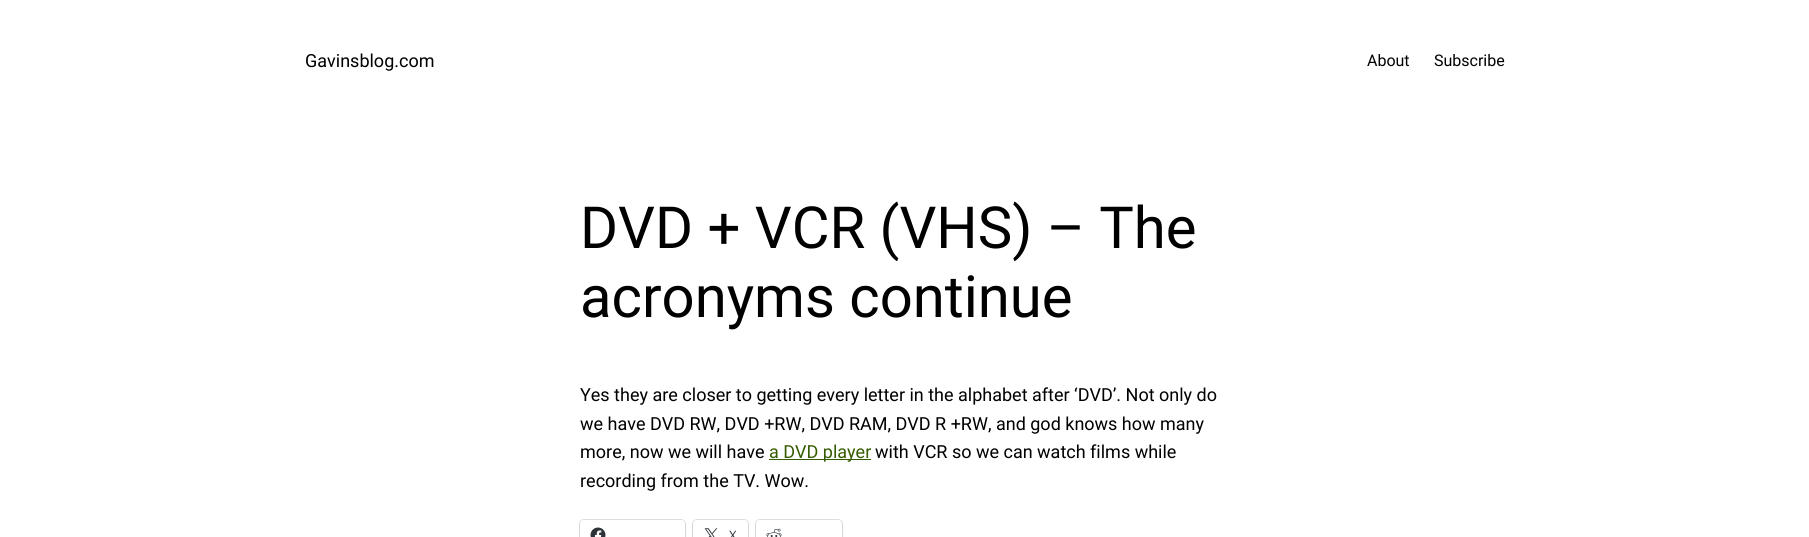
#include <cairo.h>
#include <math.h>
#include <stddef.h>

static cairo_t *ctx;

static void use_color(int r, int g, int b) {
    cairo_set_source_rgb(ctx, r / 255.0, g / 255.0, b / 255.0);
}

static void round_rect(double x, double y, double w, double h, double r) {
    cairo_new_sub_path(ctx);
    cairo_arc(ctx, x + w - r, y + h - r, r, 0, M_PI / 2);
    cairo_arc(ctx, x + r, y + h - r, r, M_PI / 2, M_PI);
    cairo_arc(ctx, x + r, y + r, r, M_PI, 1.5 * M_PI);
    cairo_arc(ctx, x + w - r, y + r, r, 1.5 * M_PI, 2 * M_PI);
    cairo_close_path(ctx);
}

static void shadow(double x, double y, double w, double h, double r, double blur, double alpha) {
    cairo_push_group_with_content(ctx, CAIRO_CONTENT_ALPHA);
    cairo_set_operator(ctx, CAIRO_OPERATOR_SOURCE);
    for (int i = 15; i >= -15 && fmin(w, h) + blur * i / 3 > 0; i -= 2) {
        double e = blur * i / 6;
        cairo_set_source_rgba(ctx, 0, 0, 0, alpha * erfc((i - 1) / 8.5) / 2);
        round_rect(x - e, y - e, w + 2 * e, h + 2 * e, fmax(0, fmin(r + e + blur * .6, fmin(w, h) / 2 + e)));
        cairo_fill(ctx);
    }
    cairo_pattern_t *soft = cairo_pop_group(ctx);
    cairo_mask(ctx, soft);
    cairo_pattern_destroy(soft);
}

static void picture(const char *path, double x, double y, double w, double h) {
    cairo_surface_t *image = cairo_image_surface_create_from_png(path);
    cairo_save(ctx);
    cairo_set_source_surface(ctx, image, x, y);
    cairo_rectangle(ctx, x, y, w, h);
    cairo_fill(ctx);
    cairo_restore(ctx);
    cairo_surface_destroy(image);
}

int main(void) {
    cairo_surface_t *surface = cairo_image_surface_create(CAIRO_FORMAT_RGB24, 1809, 537);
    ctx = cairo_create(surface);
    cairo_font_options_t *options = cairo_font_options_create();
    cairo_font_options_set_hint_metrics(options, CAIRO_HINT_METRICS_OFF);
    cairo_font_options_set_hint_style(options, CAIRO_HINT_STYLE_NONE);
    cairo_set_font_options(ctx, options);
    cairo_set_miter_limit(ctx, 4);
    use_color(255, 255, 255);
    cairo_paint(ctx);
    cairo_select_font_face(ctx, "Roboto", CAIRO_FONT_SLANT_NORMAL, CAIRO_FONT_WEIGHT_NORMAL);
    cairo_set_font_size(ctx, 18);
    use_color(0, 0, 0);
    cairo_move_to(ctx, 305, 67);
    cairo_show_text(ctx, "Gavinsblog.com");
    cairo_set_font_size(ctx, 16);
    cairo_move_to(ctx, 1367, 66);
    cairo_show_text(ctx, "About");
    cairo_move_to(ctx, 1434, 66);
    cairo_show_text(ctx, "Subscribe");
    cairo_set_font_size(ctx, 58);
    cairo_move_to(ctx, 580, 248);
    cairo_show_text(ctx, "DVD + VCR (VHS) – The");
    cairo_move_to(ctx, 580, 317);
    cairo_show_text(ctx, "acronyms continue");
    cairo_set_font_size(ctx, 18);
    cairo_move_to(ctx, 580, 401);
    cairo_show_text(ctx, "Yes they are closer to getting every letter in the alphabet after ‘DVD’. Not only do");
    cairo_move_to(ctx, 580, 430);
    cairo_show_text(ctx, "we have DVD RW, DVD +RW, DVD RAM, DVD R +RW, and god knows how many");
    cairo_move_to(ctx, 580, 458);
    cairo_show_text(ctx, "more, now we will have");
    use_color(52, 92, 0);
    cairo_rectangle(ctx, 769, 459, 102, 1);
    cairo_fill(ctx);
    cairo_move_to(ctx, 769, 458);
    cairo_show_text(ctx, "a DVD player");
    use_color(0, 0, 0);
    cairo_move_to(ctx, 875, 458);
    cairo_show_text(ctx, "with VCR so we can watch films while");
    cairo_move_to(ctx, 580, 487);
    cairo_show_text(ctx, "recording from the TV. Wow.");
    round_rect(579.5, 519.5, 106, 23, 4.5);
    use_color(224, 224, 224);
    cairo_set_line_width(ctx, 1);
    cairo_stroke(ctx);
    use_color(0, 0, 0);
    shadow(580, 521, 105, 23, 4, 1, 0.12);
    use_color(255, 255, 255);
    round_rect(580, 520, 105, 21, 4);
    cairo_fill(ctx);
    picture("img1.png", 590, 527, 16, 10);
    round_rect(692.5, 519.5, 56, 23, 4.5);
    use_color(224, 224, 224);
    cairo_stroke(ctx);
    use_color(0, 0, 0);
    shadow(693, 521, 55, 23, 4, 1, 0.12);
    use_color(255, 255, 255);
    round_rect(693, 520, 55, 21, 4);
    cairo_fill(ctx);
    picture("img2.png", 704, 528, 14, 9);
    cairo_select_font_face(ctx, "Open Sans", CAIRO_FONT_SLANT_NORMAL, CAIRO_FONT_WEIGHT_NORMAL);
    cairo_set_font_size(ctx, 13);
    use_color(44, 51, 56);
    cairo_move_to(ctx, 729, 540);
    cairo_show_text(ctx, "X");
    round_rect(755.5, 519.5, 87, 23, 4.5);
    use_color(224, 224, 224);
    cairo_stroke(ctx);
    use_color(0, 0, 0);
    shadow(756, 521, 86, 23, 4, 1, 0.12);
    use_color(255, 255, 255);
    round_rect(756, 520, 86, 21, 4);
    cairo_fill(ctx);
    picture("img3.png", 766, 528, 16, 9);
    cairo_surface_write_to_png(surface, "result.png");
    cairo_font_options_destroy(options);
    cairo_destroy(ctx);
    cairo_surface_destroy(surface);
    return 0;
}
